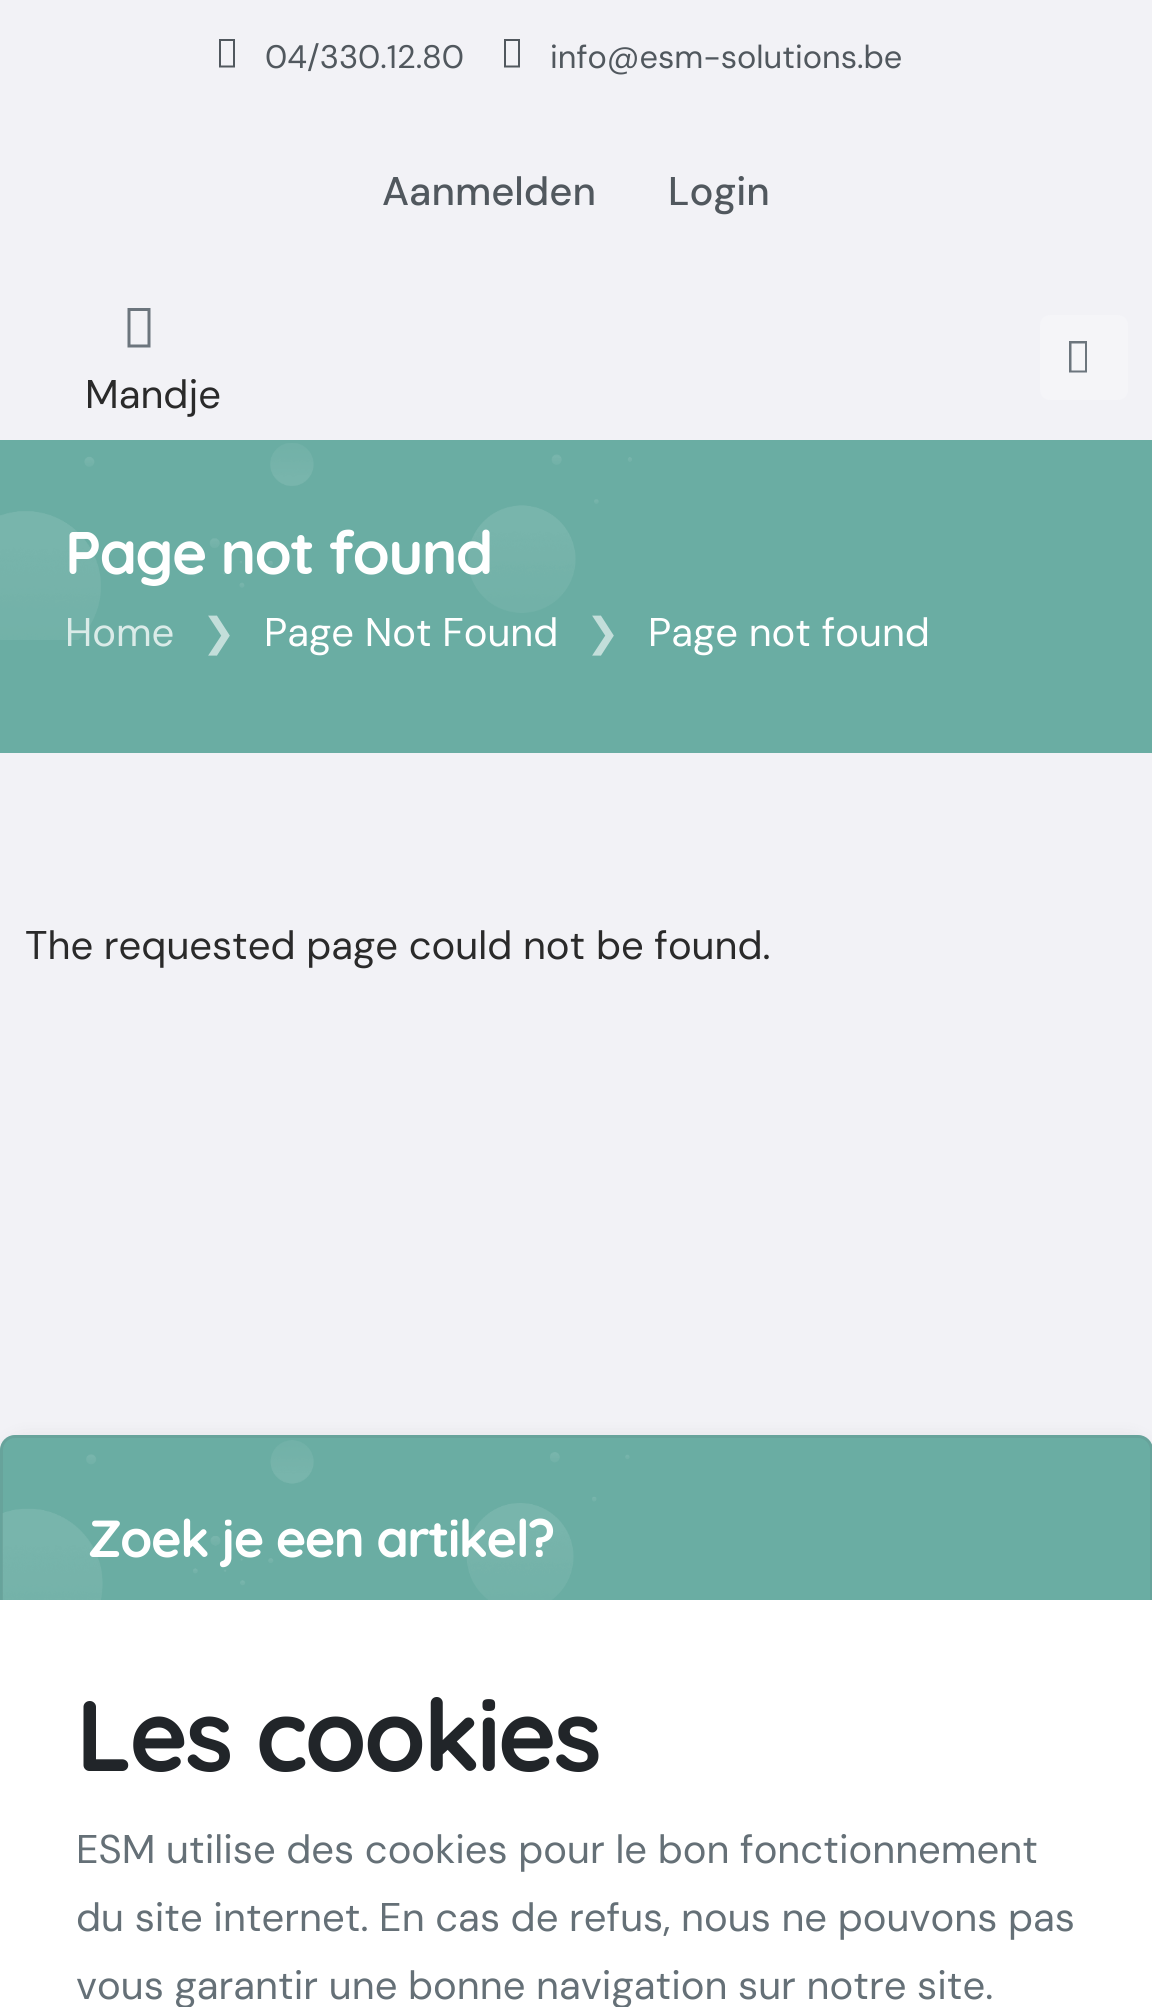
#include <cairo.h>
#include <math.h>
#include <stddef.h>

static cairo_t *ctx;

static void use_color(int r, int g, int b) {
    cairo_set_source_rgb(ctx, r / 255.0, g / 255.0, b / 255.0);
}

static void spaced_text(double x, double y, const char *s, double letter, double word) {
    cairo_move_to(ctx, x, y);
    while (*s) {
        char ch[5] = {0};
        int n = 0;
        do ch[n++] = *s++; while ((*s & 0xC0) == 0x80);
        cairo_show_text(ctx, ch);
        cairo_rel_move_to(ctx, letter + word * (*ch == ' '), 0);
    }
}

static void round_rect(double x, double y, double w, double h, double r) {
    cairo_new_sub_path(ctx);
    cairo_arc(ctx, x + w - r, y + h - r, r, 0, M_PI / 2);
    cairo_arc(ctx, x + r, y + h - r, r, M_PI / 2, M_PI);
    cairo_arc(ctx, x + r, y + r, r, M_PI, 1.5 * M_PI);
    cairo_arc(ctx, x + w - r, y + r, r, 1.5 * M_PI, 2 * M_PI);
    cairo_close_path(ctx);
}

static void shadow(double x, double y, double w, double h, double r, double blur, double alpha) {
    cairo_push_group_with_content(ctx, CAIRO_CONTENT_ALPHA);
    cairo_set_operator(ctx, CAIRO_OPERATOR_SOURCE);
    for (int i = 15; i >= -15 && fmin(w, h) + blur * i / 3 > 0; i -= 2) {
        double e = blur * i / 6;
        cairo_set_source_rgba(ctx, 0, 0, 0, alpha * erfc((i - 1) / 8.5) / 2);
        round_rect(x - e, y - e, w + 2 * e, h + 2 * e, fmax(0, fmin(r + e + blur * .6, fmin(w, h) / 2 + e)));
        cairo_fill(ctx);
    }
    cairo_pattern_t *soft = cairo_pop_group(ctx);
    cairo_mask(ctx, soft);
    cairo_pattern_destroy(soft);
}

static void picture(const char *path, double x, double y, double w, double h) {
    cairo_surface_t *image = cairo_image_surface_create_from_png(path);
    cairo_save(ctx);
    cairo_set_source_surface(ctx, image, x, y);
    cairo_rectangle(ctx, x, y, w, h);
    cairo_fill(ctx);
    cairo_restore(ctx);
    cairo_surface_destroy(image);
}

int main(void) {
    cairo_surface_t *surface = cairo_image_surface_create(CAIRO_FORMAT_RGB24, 1152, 2007);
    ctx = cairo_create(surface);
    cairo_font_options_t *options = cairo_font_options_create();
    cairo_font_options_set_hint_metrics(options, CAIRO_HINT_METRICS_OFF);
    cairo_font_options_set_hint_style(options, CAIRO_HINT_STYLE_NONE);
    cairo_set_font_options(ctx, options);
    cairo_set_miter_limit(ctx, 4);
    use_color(242, 242, 246);
    cairo_paint(ctx);
    use_color(81, 88, 94);
    cairo_new_path(ctx);
    cairo_move_to(ctx, 219, 67.5);
    cairo_line_to(ctx, 219, 39);
    cairo_line_to(ctx, 235, 39);
    cairo_line_to(ctx, 235, 67.5);
    cairo_close_path(ctx);
    cairo_move_to(ctx, 221, 65.5);
    cairo_line_to(ctx, 233, 65.5);
    cairo_line_to(ctx, 233, 41);
    cairo_line_to(ctx, 221, 41);
    cairo_close_path(ctx);
    cairo_fill(ctx);
    cairo_select_font_face(ctx, "DM Sans", CAIRO_FONT_SLANT_NORMAL, CAIRO_FONT_WEIGHT_NORMAL);
    cairo_set_font_size(ctx, 32.5);
    cairo_move_to(ctx, 265, 68);
    cairo_show_text(ctx, "04/330.12.80");
    cairo_new_path(ctx);
    cairo_move_to(ctx, 504, 67.5);
    cairo_line_to(ctx, 504, 39);
    cairo_line_to(ctx, 520, 39);
    cairo_line_to(ctx, 520, 67.5);
    cairo_close_path(ctx);
    cairo_move_to(ctx, 506, 65.5);
    cairo_line_to(ctx, 518, 65.5);
    cairo_line_to(ctx, 518, 41);
    cairo_line_to(ctx, 506, 41);
    cairo_close_path(ctx);
    cairo_fill(ctx);
    cairo_move_to(ctx, 550, 68);
    cairo_show_text(ctx, "info@esm-solutions.be");
    cairo_select_font_face(ctx, "DM Sans Medium", CAIRO_FONT_SLANT_NORMAL, CAIRO_FONT_WEIGHT_NORMAL);
    cairo_set_font_size(ctx, 40);
    cairo_move_to(ctx, 382, 205);
    cairo_show_text(ctx, "Aanmelden");
    cairo_move_to(ctx, 668, 205);
    cairo_show_text(ctx, "Login");
    use_color(108, 117, 125);
    cairo_new_path(ctx);
    cairo_move_to(ctx, 127.5, 347.5);
    cairo_line_to(ctx, 127.5, 308);
    cairo_line_to(ctx, 150.5, 308);
    cairo_line_to(ctx, 150.5, 347.5);
    cairo_close_path(ctx);
    cairo_move_to(ctx, 130.5, 344.5);
    cairo_line_to(ctx, 147.5, 344.5);
    cairo_line_to(ctx, 147.5, 311);
    cairo_line_to(ctx, 130.5, 311);
    cairo_close_path(ctx);
    cairo_fill(ctx);
    cairo_select_font_face(ctx, "DM Sans", CAIRO_FONT_SLANT_NORMAL, CAIRO_FONT_WEIGHT_NORMAL);
    use_color(42, 42, 42);
    cairo_move_to(ctx, 85, 408);
    cairo_show_text(ctx, "Mandje");
    use_color(245, 245, 248);
    round_rect(1040, 315, 88, 85, 10);
    cairo_fill(ctx);
    use_color(108, 117, 125);
    cairo_new_path(ctx);
    cairo_move_to(ctx, 1069, 372.5);
    cairo_line_to(ctx, 1069, 341);
    cairo_line_to(ctx, 1087, 341);
    cairo_line_to(ctx, 1087, 372.5);
    cairo_close_path(ctx);
    cairo_move_to(ctx, 1071.5, 370.5);
    cairo_line_to(ctx, 1085, 370.5);
    cairo_line_to(ctx, 1085, 343.5);
    cairo_line_to(ctx, 1071.5, 343.5);
    cairo_close_path(ctx);
    cairo_fill(ctx);
    use_color(106, 173, 163);
    cairo_rectangle(ctx, 0, 440, 1152, 313);
    cairo_fill(ctx);
    picture("img1.png", 0, 443, 632, 197);
    cairo_select_font_face(ctx, "Quicksand", CAIRO_FONT_SLANT_NORMAL, CAIRO_FONT_WEIGHT_BOLD);
    cairo_set_font_size(ctx, 60);
    use_color(255, 255, 255);
    spaced_text(65, 574, "Page not found", -1.75, 0);
    cairo_select_font_face(ctx, "DM Sans", CAIRO_FONT_SLANT_NORMAL, CAIRO_FONT_WEIGHT_NORMAL);
    cairo_set_font_size(ctx, 40);
    use_color(218, 235, 232);
    cairo_move_to(ctx, 65, 646);
    cairo_show_text(ctx, "Home");
    cairo_select_font_face(ctx, "DejaVu Sans", CAIRO_FONT_SLANT_NORMAL, CAIRO_FONT_WEIGHT_NORMAL);
    use_color(195, 222, 218);
    cairo_move_to(ctx, 202, 646);
    cairo_show_text(ctx, "❯");
    cairo_select_font_face(ctx, "DM Sans", CAIRO_FONT_SLANT_NORMAL, CAIRO_FONT_WEIGHT_NORMAL);
    use_color(255, 255, 255);
    cairo_move_to(ctx, 264, 646);
    cairo_show_text(ctx, "Page Not Found");
    cairo_select_font_face(ctx, "DejaVu Sans", CAIRO_FONT_SLANT_NORMAL, CAIRO_FONT_WEIGHT_NORMAL);
    use_color(195, 222, 218);
    cairo_move_to(ctx, 586, 646);
    cairo_show_text(ctx, "❯");
    cairo_select_font_face(ctx, "DM Sans", CAIRO_FONT_SLANT_NORMAL, CAIRO_FONT_WEIGHT_NORMAL);
    use_color(255, 255, 255);
    cairo_move_to(ctx, 648, 646);
    cairo_show_text(ctx, "Page not found");
    use_color(42, 42, 42);
    cairo_move_to(ctx, 25, 959);
    cairo_show_text(ctx, "The requested page could not be found.");
    use_color(0, 0, 0);
    shadow(0, 1440, 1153, 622, 25, 10, 0.1);
    use_color(106, 173, 163);
    round_rect(0, 1435, 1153, 413, 15);
    cairo_fill(ctx);
    picture("img2.png", 2, 1440, 628, 160);
    round_rect(1.5, 1436.5, 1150, 410, 13.5);
    cairo_set_source_rgba(ctx, 0.318, 0.345, 0.369, 0.12);
    cairo_set_line_width(ctx, 3);
    cairo_stroke(ctx);
    cairo_select_font_face(ctx, "Quicksand", CAIRO_FONT_SLANT_NORMAL, CAIRO_FONT_WEIGHT_BOLD);
    cairo_set_font_size(ctx, 52);
    use_color(255, 255, 255);
    spaced_text(88, 1557, "Zoek je een artikel?", -1.6, 0);
    cairo_rectangle(ctx, 0, 1600, 1152, 407);
    cairo_fill(ctx);
    cairo_set_font_size(ctx, 100);
    use_color(33, 37, 41);
    spaced_text(76, 1771, "Les cookies", -3, 0);
    cairo_select_font_face(ctx, "DM Sans", CAIRO_FONT_SLANT_NORMAL, CAIRO_FONT_WEIGHT_NORMAL);
    cairo_set_font_size(ctx, 40);
    use_color(101, 112, 119);
    cairo_move_to(ctx, 76, 1863);
    cairo_show_text(ctx, "ESM utilise des cookies pour le bon fonctionnement");
    cairo_move_to(ctx, 76, 1931);
    cairo_show_text(ctx, "du site internet. En cas de refus, nous ne pouvons pas");
    cairo_move_to(ctx, 76, 1999);
    cairo_show_text(ctx, "vous garantir une bonne navigation sur notre site.");
    cairo_surface_write_to_png(surface, "result.png");
    cairo_font_options_destroy(options);
    cairo_destroy(ctx);
    cairo_surface_destroy(surface);
    return 0;
}
